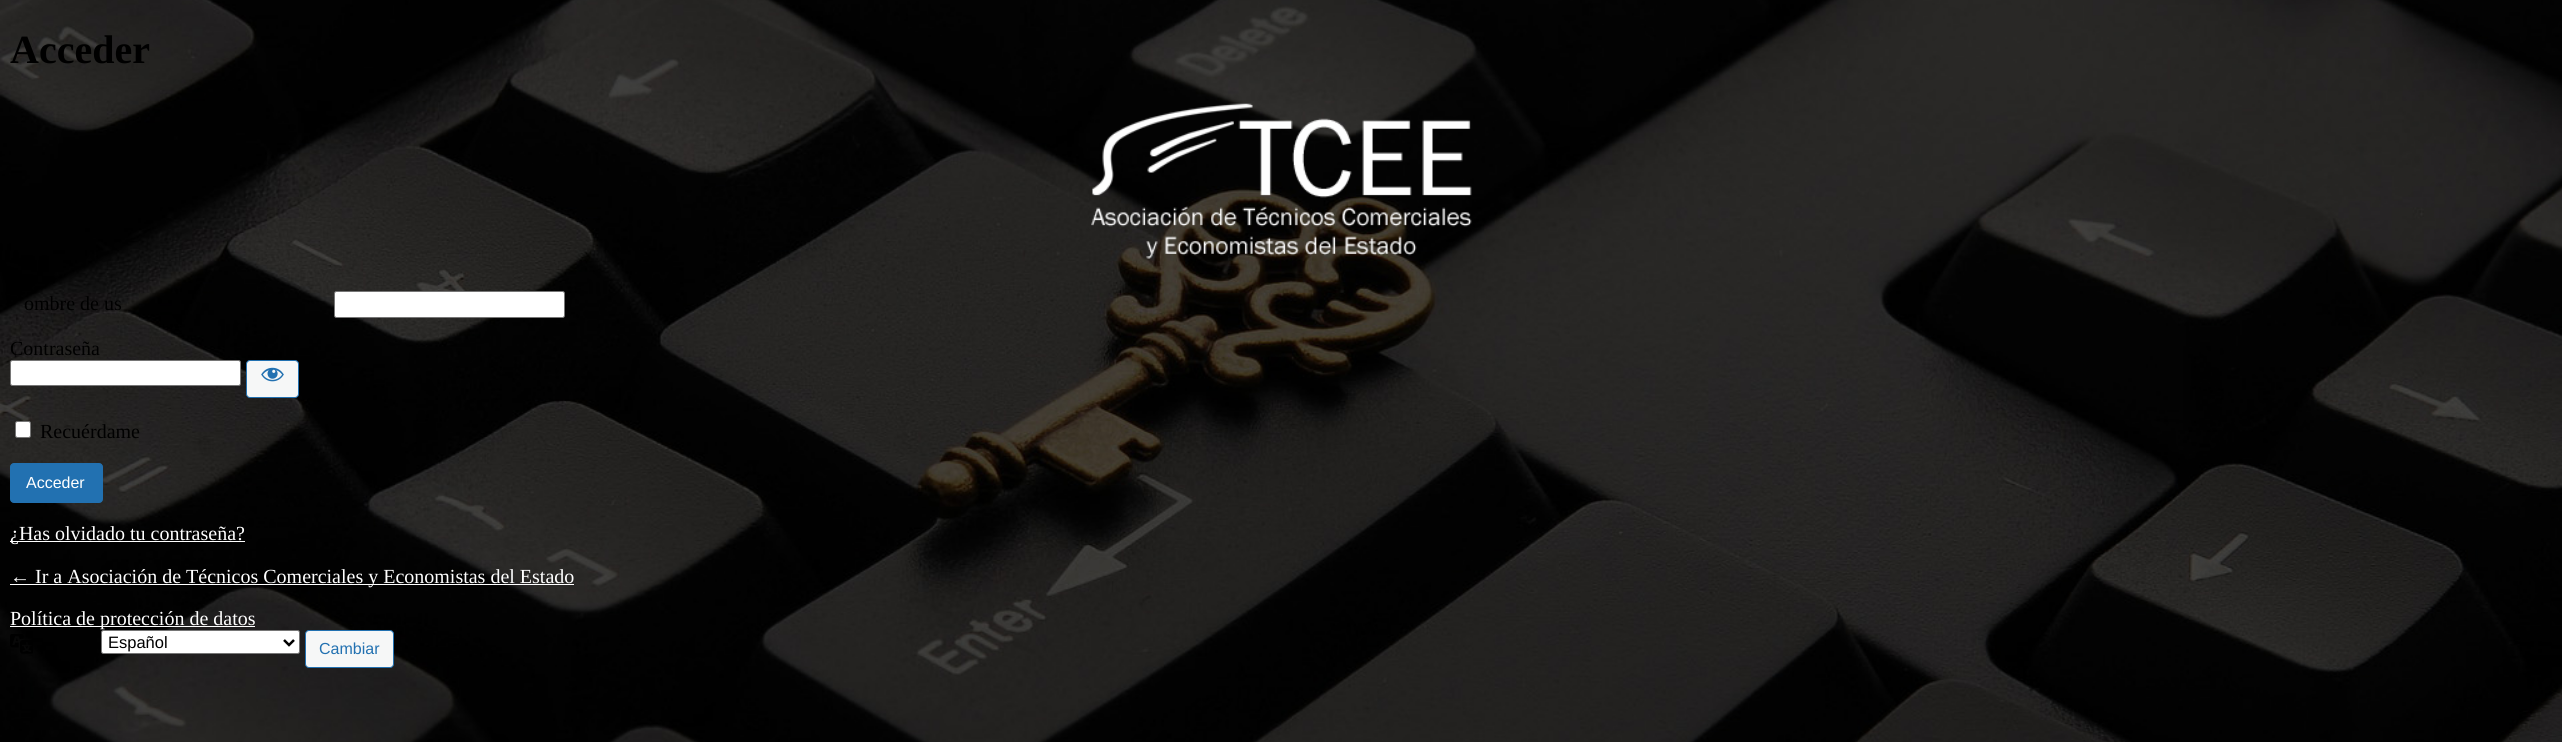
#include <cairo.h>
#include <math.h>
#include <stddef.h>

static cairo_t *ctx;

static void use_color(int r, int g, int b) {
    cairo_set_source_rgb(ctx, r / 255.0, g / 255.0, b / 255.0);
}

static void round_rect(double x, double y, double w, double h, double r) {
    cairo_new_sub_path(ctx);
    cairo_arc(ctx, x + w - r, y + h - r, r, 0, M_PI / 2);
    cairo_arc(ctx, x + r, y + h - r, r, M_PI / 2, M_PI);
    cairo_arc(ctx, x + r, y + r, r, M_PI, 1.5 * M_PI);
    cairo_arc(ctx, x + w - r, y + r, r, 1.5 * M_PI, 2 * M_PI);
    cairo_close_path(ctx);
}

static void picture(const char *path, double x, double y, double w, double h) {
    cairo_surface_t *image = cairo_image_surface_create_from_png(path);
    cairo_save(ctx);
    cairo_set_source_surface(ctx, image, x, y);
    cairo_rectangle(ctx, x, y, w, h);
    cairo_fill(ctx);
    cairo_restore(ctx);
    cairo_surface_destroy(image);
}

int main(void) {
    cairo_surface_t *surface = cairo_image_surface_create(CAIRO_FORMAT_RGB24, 2562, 742);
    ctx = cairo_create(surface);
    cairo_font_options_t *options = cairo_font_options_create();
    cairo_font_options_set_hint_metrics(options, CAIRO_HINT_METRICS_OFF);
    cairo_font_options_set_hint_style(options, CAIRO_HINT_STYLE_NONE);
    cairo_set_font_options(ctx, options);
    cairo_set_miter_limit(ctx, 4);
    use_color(255, 255, 255);
    cairo_paint(ctx);
    picture("img1.png", 0, 0, 2562, 742);
    cairo_select_font_face(ctx, "Liberation Serif", CAIRO_FONT_SLANT_NORMAL, CAIRO_FONT_WEIGHT_BOLD);
    cairo_set_font_size(ctx, 40);
    use_color(0, 0, 0);
    cairo_move_to(ctx, 10, 63);
    cairo_show_text(ctx, "Acceder");
    picture("img2.png", 1091, 103, 381, 156);
    cairo_select_font_face(ctx, "Liberation Serif", CAIRO_FONT_SLANT_NORMAL, CAIRO_FONT_WEIGHT_NORMAL);
    cairo_set_font_size(ctx, 20);
    cairo_move_to(ctx, 24, 310);
    cairo_show_text(ctx, "ombre de us");
    use_color(255, 255, 255);
    round_rect(334.5, 291.5, 230, 26, 2);
    cairo_fill_preserve(ctx);
    use_color(118, 118, 118);
    cairo_set_line_width(ctx, 1);
    cairo_stroke(ctx);
    use_color(0, 0, 0);
    cairo_move_to(ctx, 10, 355);
    cairo_show_text(ctx, "Contraseña");
    use_color(255, 255, 255);
    round_rect(10.5, 360.5, 230, 25, 2);
    cairo_fill_preserve(ctx);
    use_color(118, 118, 118);
    cairo_stroke(ctx);
    use_color(246, 247, 247);
    round_rect(246.5, 360.5, 52, 37, 3.5);
    cairo_fill_preserve(ctx);
    use_color(34, 113, 177);
    cairo_stroke(ctx);
    picture("img3.png", 261, 367, 23, 15);
    use_color(255, 255, 255);
    round_rect(15.5, 421.5, 15, 16, 2);
    cairo_fill_preserve(ctx);
    use_color(118, 118, 118);
    cairo_stroke(ctx);
    use_color(0, 0, 0);
    cairo_move_to(ctx, 40, 438);
    cairo_show_text(ctx, "Recuérdame");
    use_color(34, 113, 177);
    round_rect(10.5, 463.5, 92, 39, 3.5);
    cairo_fill_preserve(ctx);
    cairo_stroke(ctx);
    cairo_select_font_face(ctx, "Liberation Sans", CAIRO_FONT_SLANT_NORMAL, CAIRO_FONT_WEIGHT_NORMAL);
    cairo_set_font_size(ctx, 16);
    use_color(255, 255, 255);
    cairo_move_to(ctx, 26, 488);
    cairo_show_text(ctx, "Acceder");
    cairo_rectangle(ctx, 10, 541, 235, 1);
    cairo_fill(ctx);
    cairo_select_font_face(ctx, "Liberation Serif", CAIRO_FONT_SLANT_NORMAL, CAIRO_FONT_WEIGHT_NORMAL);
    cairo_set_font_size(ctx, 20);
    cairo_move_to(ctx, 10, 540);
    cairo_show_text(ctx, "¿Has olvidado tu contraseña?");
    cairo_rectangle(ctx, 10, 584, 564, 1);
    cairo_fill(ctx);
    cairo_move_to(ctx, 10, 583);
    cairo_show_text(ctx, "← Ir a Asociación de Técnicos Comerciales y Economistas del Estado");
    cairo_rectangle(ctx, 10, 626, 245, 1);
    cairo_fill(ctx);
    cairo_move_to(ctx, 10, 625);
    cairo_show_text(ctx, "Política de protección de datos");
    picture("img4.png", 10, 634, 23, 20);
    round_rect(101.5, 630.5, 198, 23, 2);
    cairo_fill_preserve(ctx);
    use_color(118, 118, 118);
    cairo_stroke(ctx);
    cairo_new_path(ctx);
    cairo_move_to(ctx, 284, 640);
    cairo_line_to(ctx, 289, 645);
    cairo_line_to(ctx, 294, 640);
    use_color(0, 0, 0);
    cairo_set_line_width(ctx, 2.5);
    cairo_stroke(ctx);
    cairo_select_font_face(ctx, "Liberation Sans", CAIRO_FONT_SLANT_NORMAL, CAIRO_FONT_WEIGHT_NORMAL);
    cairo_set_font_size(ctx, 16.5);
    cairo_move_to(ctx, 108, 648);
    cairo_show_text(ctx, "Español");
    use_color(246, 247, 247);
    round_rect(305.5, 630.5, 88, 37, 3.5);
    cairo_fill_preserve(ctx);
    use_color(34, 113, 177);
    cairo_set_line_width(ctx, 1);
    cairo_stroke(ctx);
    cairo_set_font_size(ctx, 16);
    cairo_move_to(ctx, 319, 654);
    cairo_show_text(ctx, "Cambiar");
    cairo_surface_write_to_png(surface, "result.png");
    cairo_font_options_destroy(options);
    cairo_destroy(ctx);
    cairo_surface_destroy(surface);
    return 0;
}
